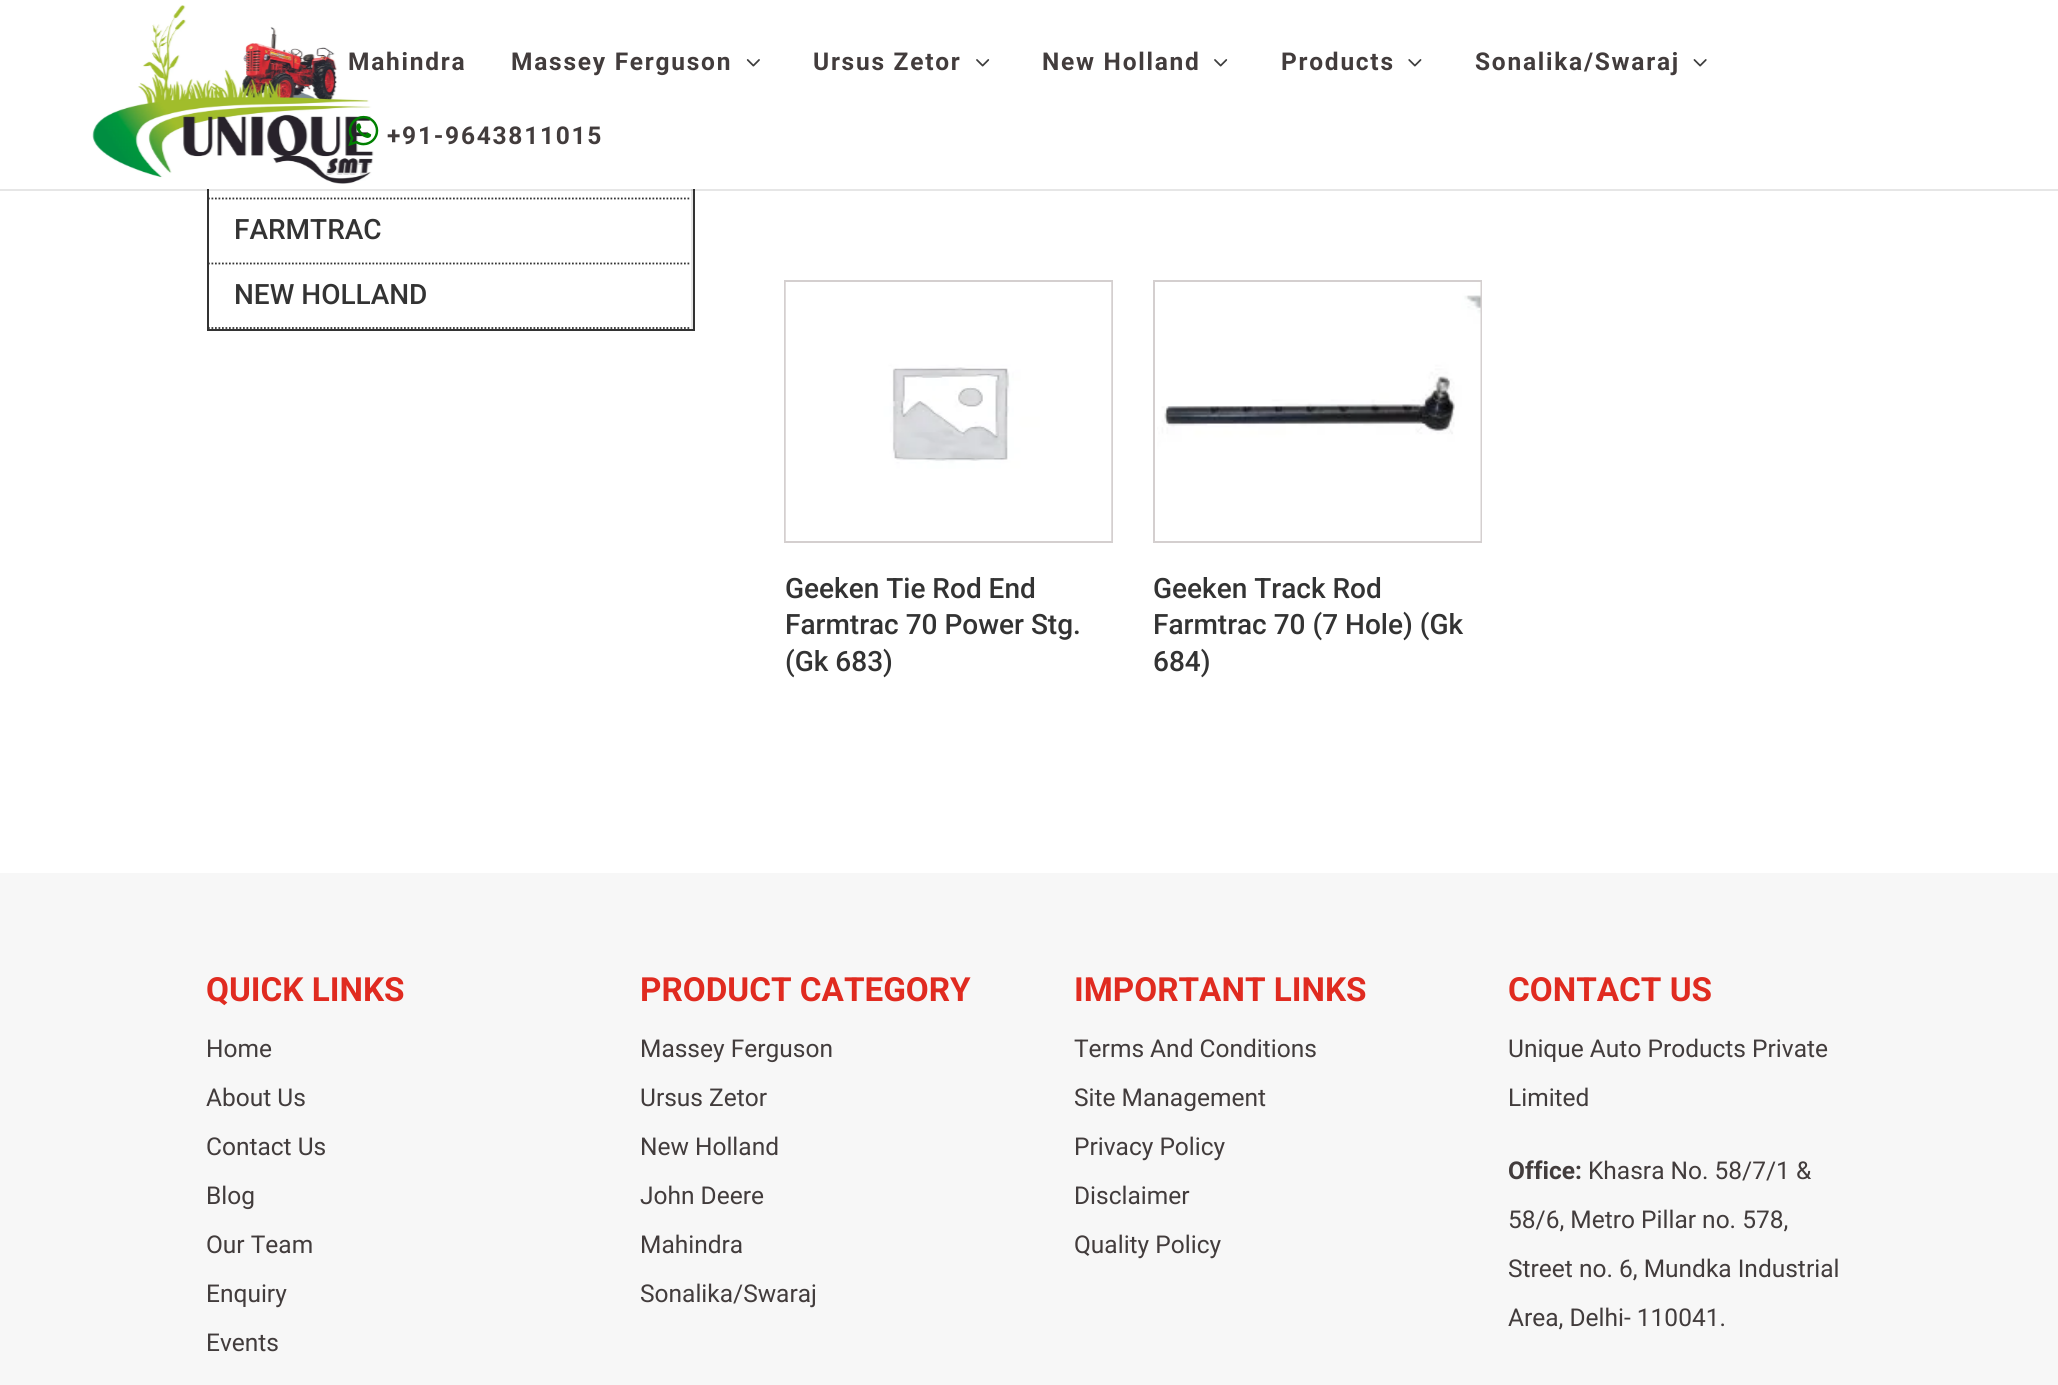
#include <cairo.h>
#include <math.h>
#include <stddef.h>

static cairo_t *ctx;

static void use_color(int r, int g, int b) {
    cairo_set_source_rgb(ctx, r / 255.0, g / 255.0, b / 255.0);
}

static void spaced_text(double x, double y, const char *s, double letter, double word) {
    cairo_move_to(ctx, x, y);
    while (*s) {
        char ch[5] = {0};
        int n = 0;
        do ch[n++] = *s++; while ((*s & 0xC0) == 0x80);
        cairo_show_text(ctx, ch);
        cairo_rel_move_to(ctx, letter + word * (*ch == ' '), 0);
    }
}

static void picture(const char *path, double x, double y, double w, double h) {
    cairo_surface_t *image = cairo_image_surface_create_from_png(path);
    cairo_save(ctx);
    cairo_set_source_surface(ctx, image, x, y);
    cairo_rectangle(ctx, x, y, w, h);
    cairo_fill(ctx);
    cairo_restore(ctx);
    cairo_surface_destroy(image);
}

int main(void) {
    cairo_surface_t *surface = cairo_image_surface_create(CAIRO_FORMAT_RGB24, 2058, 1385);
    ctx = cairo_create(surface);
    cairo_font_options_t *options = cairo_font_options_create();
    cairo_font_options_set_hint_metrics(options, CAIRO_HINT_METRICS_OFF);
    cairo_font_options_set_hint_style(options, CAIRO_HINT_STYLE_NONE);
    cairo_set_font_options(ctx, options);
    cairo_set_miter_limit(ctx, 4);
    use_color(255, 255, 255);
    cairo_paint(ctx);
    cairo_rectangle(ctx, 208, -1, 486, 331);
    use_color(51, 51, 51);
    cairo_stroke(ctx);
    use_color(230, 230, 230);
    cairo_rectangle(ctx, 691, 189, 2, 140);
    cairo_fill(ctx);
    cairo_set_source_rgba(ctx, 0, 0, 0, 0.1);
    cairo_rectangle(ctx, 0, 189, 2058, 2);
    cairo_fill(ctx);
    use_color(255, 255, 255);
    cairo_rectangle(ctx, 207, 0, 488, 189);
    cairo_fill(ctx);
    picture("img1.png", 92, 5, 282, 179);
    cairo_select_font_face(ctx, "Roboto", CAIRO_FONT_SLANT_NORMAL, CAIRO_FONT_WEIGHT_BOLD);
    cairo_set_font_size(ctx, 24.5);
    use_color(66, 60, 60);
    spaced_text(348, 70, "Mahindra", 1.75, 0);
    spaced_text(511, 70, "Massey Ferguson", 1.75, 0);
    picture("img2.png", 746, 59, 14, 8);
    spaced_text(813, 70, "Ursus Zetor", 1.75, 0);
    picture("img3.png", 976, 59, 14, 8);
    spaced_text(1042, 70, "New Holland", 1.75, 0);
    picture("img3.png", 1214, 59, 14, 8);
    spaced_text(1281, 70, "Products", 1.75, 0);
    picture("img4.png", 1408, 59, 14, 8);
    spaced_text(1475, 70, "Sonalika/Swaraj", 1.75, 0);
    picture("img5.png", 1693, 59, 14, 8);
    picture("img6.png", 348, 115, 31, 31);
    spaced_text(387, 144, "+91-9643811015", 1.75, 0);
    cairo_new_path(ctx);
    cairo_move_to(ctx, 208, 198.5);
    cairo_line_to(ctx, 691, 198.5);
    use_color(51, 51, 51);
    cairo_set_line_width(ctx, 1.8);
    cairo_set_dash(ctx, (double[]){1.75, 1.75}, 2, 0);
    cairo_stroke(ctx);
    cairo_new_path(ctx);
    cairo_move_to(ctx, 208, 263.5);
    cairo_line_to(ctx, 691, 263.5);
    cairo_stroke(ctx);
    cairo_select_font_face(ctx, "Roboto Medium", CAIRO_FONT_SLANT_NORMAL, CAIRO_FONT_WEIGHT_NORMAL);
    cairo_set_font_size(ctx, 28);
    cairo_move_to(ctx, 234, 239);
    cairo_show_text(ctx, "FARMTRAC");
    cairo_new_path(ctx);
    cairo_move_to(ctx, 208, 328);
    cairo_line_to(ctx, 691, 328);
    cairo_stroke(ctx);
    cairo_move_to(ctx, 234, 304);
    cairo_show_text(ctx, "NEW HOLLAND");
    cairo_rectangle(ctx, 785, 281, 327, 261);
    use_color(212, 207, 207);
    cairo_set_line_width(ctx, 2);
    cairo_set_dash(ctx, NULL, 0, 0);
    cairo_stroke(ctx);
    picture("img7.png", 785, 282, 327, 259);
    use_color(51, 51, 51);
    cairo_move_to(ctx, 785, 598);
    cairo_show_text(ctx, "Geeken Tie Rod End");
    cairo_move_to(ctx, 785, 634);
    cairo_show_text(ctx, "Farmtrac 70 Power Stg.");
    cairo_move_to(ctx, 785, 671);
    cairo_show_text(ctx, "(Gk 683)");
    cairo_rectangle(ctx, 1154, 281, 327, 261);
    use_color(212, 207, 207);
    cairo_stroke(ctx);
    picture("img8.png", 1157, 282, 324, 259);
    use_color(51, 51, 51);
    cairo_move_to(ctx, 1153, 598);
    cairo_show_text(ctx, "Geeken Track Rod");
    cairo_move_to(ctx, 1153, 634);
    cairo_show_text(ctx, "Farmtrac 70 (7 Hole) (Gk");
    cairo_move_to(ctx, 1153, 671);
    cairo_show_text(ctx, "684)");
    use_color(247, 247, 247);
    cairo_rectangle(ctx, 0, 873, 2058, 512);
    cairo_fill(ctx);
    cairo_select_font_face(ctx, "Roboto", CAIRO_FONT_SLANT_NORMAL, CAIRO_FONT_WEIGHT_BOLD);
    cairo_set_font_size(ctx, 33.25);
    use_color(224, 43, 32);
    cairo_move_to(ctx, 206, 1001);
    cairo_show_text(ctx, "QUICK LINKS");
    cairo_select_font_face(ctx, "Roboto", CAIRO_FONT_SLANT_NORMAL, CAIRO_FONT_WEIGHT_NORMAL);
    cairo_set_font_size(ctx, 24.5);
    use_color(66, 60, 60);
    cairo_move_to(ctx, 206, 1057);
    cairo_show_text(ctx, "Home");
    cairo_move_to(ctx, 206, 1106);
    cairo_show_text(ctx, "About Us");
    cairo_move_to(ctx, 206, 1155);
    cairo_show_text(ctx, "Contact Us");
    cairo_move_to(ctx, 206, 1204);
    cairo_show_text(ctx, "Blog");
    cairo_move_to(ctx, 206, 1253);
    cairo_show_text(ctx, "Our Team");
    cairo_move_to(ctx, 206, 1302);
    cairo_show_text(ctx, "Enquiry");
    cairo_move_to(ctx, 206, 1351);
    cairo_show_text(ctx, "Events");
    cairo_select_font_face(ctx, "Roboto", CAIRO_FONT_SLANT_NORMAL, CAIRO_FONT_WEIGHT_BOLD);
    cairo_set_font_size(ctx, 33.25);
    use_color(224, 43, 32);
    cairo_move_to(ctx, 640, 1001);
    cairo_show_text(ctx, "PRODUCT CATEGORY");
    cairo_select_font_face(ctx, "Roboto", CAIRO_FONT_SLANT_NORMAL, CAIRO_FONT_WEIGHT_NORMAL);
    cairo_set_font_size(ctx, 24.5);
    use_color(66, 60, 60);
    cairo_move_to(ctx, 640, 1057);
    cairo_show_text(ctx, "Massey Ferguson");
    cairo_move_to(ctx, 640, 1106);
    cairo_show_text(ctx, "Ursus Zetor");
    cairo_move_to(ctx, 640, 1155);
    cairo_show_text(ctx, "New Holland");
    cairo_move_to(ctx, 640, 1204);
    cairo_show_text(ctx, "John Deere");
    cairo_move_to(ctx, 640, 1253);
    cairo_show_text(ctx, "Mahindra");
    cairo_move_to(ctx, 640, 1302);
    cairo_show_text(ctx, "Sonalika/Swaraj");
    cairo_select_font_face(ctx, "Roboto", CAIRO_FONT_SLANT_NORMAL, CAIRO_FONT_WEIGHT_BOLD);
    cairo_set_font_size(ctx, 33.25);
    use_color(224, 43, 32);
    cairo_move_to(ctx, 1074, 1001);
    cairo_show_text(ctx, "IMPORTANT LINKS");
    cairo_select_font_face(ctx, "Roboto", CAIRO_FONT_SLANT_NORMAL, CAIRO_FONT_WEIGHT_NORMAL);
    cairo_set_font_size(ctx, 24.5);
    use_color(66, 60, 60);
    cairo_move_to(ctx, 1074, 1057);
    cairo_show_text(ctx, "Terms And Conditions");
    cairo_move_to(ctx, 1074, 1106);
    cairo_show_text(ctx, "Site Management");
    cairo_move_to(ctx, 1074, 1155);
    cairo_show_text(ctx, "Privacy Policy");
    cairo_move_to(ctx, 1074, 1204);
    cairo_show_text(ctx, "Disclaimer");
    cairo_move_to(ctx, 1074, 1253);
    cairo_show_text(ctx, "Quality Policy");
    cairo_select_font_face(ctx, "Roboto", CAIRO_FONT_SLANT_NORMAL, CAIRO_FONT_WEIGHT_BOLD);
    cairo_set_font_size(ctx, 33.25);
    use_color(224, 43, 32);
    cairo_move_to(ctx, 1508, 1001);
    cairo_show_text(ctx, "CONTACT US");
    cairo_select_font_face(ctx, "Roboto", CAIRO_FONT_SLANT_NORMAL, CAIRO_FONT_WEIGHT_NORMAL);
    cairo_set_font_size(ctx, 24.5);
    use_color(66, 60, 60);
    cairo_move_to(ctx, 1508, 1057);
    cairo_show_text(ctx, "Unique Auto Products Private");
    cairo_move_to(ctx, 1508, 1106);
    cairo_show_text(ctx, "Limited");
    cairo_select_font_face(ctx, "Roboto", CAIRO_FONT_SLANT_NORMAL, CAIRO_FONT_WEIGHT_BOLD);
    cairo_move_to(ctx, 1508, 1179);
    cairo_show_text(ctx, "Office:");
    cairo_select_font_face(ctx, "Roboto", CAIRO_FONT_SLANT_NORMAL, CAIRO_FONT_WEIGHT_NORMAL);
    cairo_move_to(ctx, 1588, 1179);
    cairo_show_text(ctx, "Khasra No. 58/7/1 &");
    cairo_move_to(ctx, 1508, 1228);
    cairo_show_text(ctx, "58/6, Metro Pillar no. 578,");
    cairo_move_to(ctx, 1508, 1277);
    cairo_show_text(ctx, "Street no. 6, Mundka Industrial");
    cairo_move_to(ctx, 1508, 1326);
    cairo_show_text(ctx, "Area, Delhi- 110041.");
    cairo_surface_write_to_png(surface, "result.png");
    cairo_font_options_destroy(options);
    cairo_destroy(ctx);
    cairo_surface_destroy(surface);
    return 0;
}
